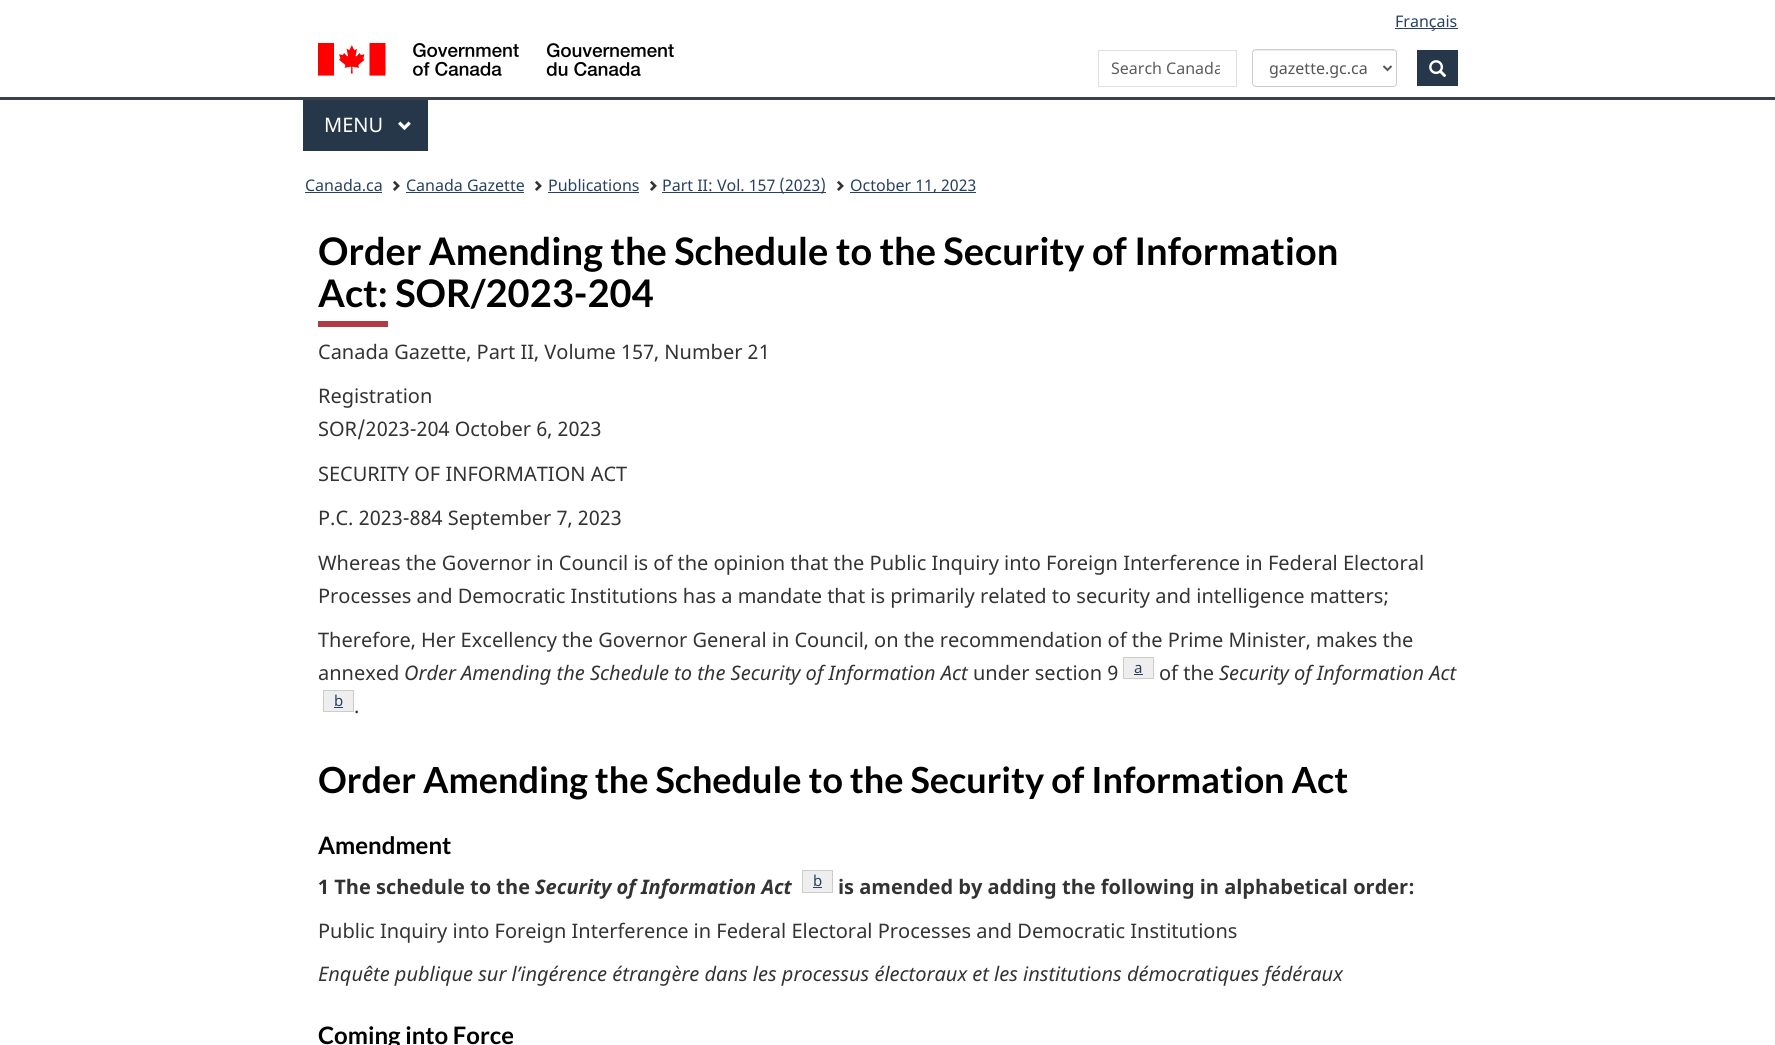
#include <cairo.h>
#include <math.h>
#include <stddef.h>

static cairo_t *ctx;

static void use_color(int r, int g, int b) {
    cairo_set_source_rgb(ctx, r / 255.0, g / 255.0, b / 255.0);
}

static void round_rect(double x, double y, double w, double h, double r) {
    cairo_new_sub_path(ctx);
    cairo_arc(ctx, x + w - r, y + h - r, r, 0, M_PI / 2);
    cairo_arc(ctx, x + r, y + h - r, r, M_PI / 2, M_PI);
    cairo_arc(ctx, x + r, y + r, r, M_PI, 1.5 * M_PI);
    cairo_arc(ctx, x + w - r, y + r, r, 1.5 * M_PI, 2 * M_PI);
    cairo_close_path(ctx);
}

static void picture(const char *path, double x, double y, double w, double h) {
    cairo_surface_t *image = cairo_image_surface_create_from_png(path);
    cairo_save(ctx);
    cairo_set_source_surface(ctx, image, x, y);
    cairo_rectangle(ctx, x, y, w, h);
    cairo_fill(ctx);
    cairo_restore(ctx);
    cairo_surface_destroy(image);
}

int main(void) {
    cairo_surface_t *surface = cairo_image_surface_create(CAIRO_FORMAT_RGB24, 1775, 1045);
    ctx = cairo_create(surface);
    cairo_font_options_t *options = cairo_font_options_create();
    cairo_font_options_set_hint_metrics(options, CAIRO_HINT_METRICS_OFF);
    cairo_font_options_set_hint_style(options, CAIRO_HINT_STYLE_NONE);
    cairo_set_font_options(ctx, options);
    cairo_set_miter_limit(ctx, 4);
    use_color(255, 255, 255);
    cairo_paint(ctx);
    use_color(40, 65, 98);
    cairo_rectangle(ctx, 1395, 28, 63, 1);
    cairo_fill(ctx);
    cairo_select_font_face(ctx, "Noto Sans", CAIRO_FONT_SLANT_NORMAL, CAIRO_FONT_WEIGHT_NORMAL);
    cairo_set_font_size(ctx, 16);
    cairo_move_to(ctx, 1395, 27);
    cairo_show_text(ctx, "Français");
    picture("img1.png", 318, 43, 356, 33);
    cairo_rectangle(ctx, 1098.5, 50.5, 138, 36);
    use_color(224, 224, 224);
    cairo_set_line_width(ctx, 1);
    cairo_stroke(ctx);
    cairo_save(ctx);
    cairo_rectangle(ctx, 1111, 57, 109, 22);
    cairo_clip(ctx);
    use_color(92, 92, 92);
    cairo_move_to(ctx, 1111, 74);
    cairo_show_text(ctx, "Search Canada");
    cairo_restore(ctx);
    use_color(236, 236, 236);
    cairo_new_path(ctx);
    cairo_move_to(ctx, 1256, 51);
    cairo_line_to(ctx, 1393, 51);
    cairo_curve_to(ctx, 1395, 51, 1396, 52, 1396, 54);
    cairo_line_to(ctx, 1396, 53);
    cairo_curve_to(ctx, 1396, 51, 1395, 50, 1393, 50);
    cairo_line_to(ctx, 1256, 50);
    cairo_curve_to(ctx, 1254, 50, 1253, 51, 1253, 53);
    cairo_line_to(ctx, 1253, 54);
    cairo_curve_to(ctx, 1253, 52, 1254, 51, 1256, 51);
    cairo_close_path(ctx);
    cairo_fill(ctx);
    round_rect(1252.5, 49.5, 144, 37, 3.5);
    use_color(204, 204, 204);
    cairo_stroke(ctx);
    cairo_new_path(ctx);
    cairo_move_to(ctx, 1383.5, 66);
    cairo_line_to(ctx, 1387.5, 70);
    cairo_line_to(ctx, 1391.5, 66);
    use_color(85, 85, 85);
    cairo_set_line_width(ctx, 2);
    cairo_stroke(ctx);
    cairo_move_to(ctx, 1269, 74);
    cairo_show_text(ctx, "gazette.gc.ca");
    use_color(38, 55, 74);
    cairo_rectangle(ctx, 1417, 50, 41, 36);
    cairo_fill(ctx);
    picture("img2.png", 1429, 60, 18, 18);
    use_color(56, 65, 77);
    cairo_rectangle(ctx, 0, 97, 1775, 3);
    cairo_fill(ctx);
    use_color(38, 55, 74);
    cairo_rectangle(ctx, 303, 100, 125, 51);
    cairo_fill(ctx);
    cairo_set_font_size(ctx, 20);
    use_color(255, 255, 255);
    cairo_move_to(ctx, 324, 132);
    cairo_show_text(ctx, "MENU");
    picture("img3.png", 398, 121, 13, 10);
    cairo_set_font_size(ctx, 16);
    use_color(40, 65, 98);
    cairo_move_to(ctx, 305, 191);
    cairo_show_text(ctx, "Canada.ca");
    cairo_rectangle(ctx, 305, 192, 77, 1);
    cairo_fill(ctx);
    picture("img4.png", 393, 180, 7, 11);
    cairo_move_to(ctx, 406, 191);
    cairo_show_text(ctx, "Canada Gazette");
    cairo_rectangle(ctx, 406, 192, 118, 1);
    cairo_fill(ctx);
    picture("img4.png", 535, 180, 7, 11);
    cairo_move_to(ctx, 548, 191);
    cairo_show_text(ctx, "Publications");
    cairo_rectangle(ctx, 548, 192, 91, 1);
    cairo_fill(ctx);
    picture("img4.png", 650, 180, 7, 11);
    cairo_rectangle(ctx, 662, 192, 164, 1);
    cairo_fill(ctx);
    cairo_move_to(ctx, 662, 191);
    cairo_show_text(ctx, "Part II: Vol. 157 (2023)");
    picture("img4.png", 837, 180, 7, 11);
    cairo_rectangle(ctx, 850, 192, 126, 1);
    cairo_fill(ctx);
    cairo_move_to(ctx, 850, 191);
    cairo_show_text(ctx, "October 11, 2023");
    use_color(175, 60, 67);
    cairo_rectangle(ctx, 318, 321, 70, 6);
    cairo_fill(ctx);
    cairo_select_font_face(ctx, "Lato", CAIRO_FONT_SLANT_NORMAL, CAIRO_FONT_WEIGHT_BOLD);
    cairo_set_font_size(ctx, 38);
    use_color(0, 0, 0);
    cairo_move_to(ctx, 318, 265);
    cairo_show_text(ctx, "Order Amending the Schedule to the Security of Information");
    cairo_move_to(ctx, 318, 307);
    cairo_show_text(ctx, "Act: SOR/2023-204");
    cairo_select_font_face(ctx, "Noto Sans", CAIRO_FONT_SLANT_NORMAL, CAIRO_FONT_WEIGHT_NORMAL);
    cairo_set_font_size(ctx, 20);
    use_color(51, 51, 51);
    cairo_move_to(ctx, 318, 359);
    cairo_show_text(ctx, "Canada Gazette, Part II, Volume 157, Number 21");
    cairo_move_to(ctx, 318, 403);
    cairo_show_text(ctx, "Registration");
    cairo_move_to(ctx, 318, 436);
    cairo_show_text(ctx, "SOR/2023-204 October 6, 2023");
    cairo_move_to(ctx, 318, 481);
    cairo_show_text(ctx, "SECURITY OF INFORMATION ACT");
    cairo_move_to(ctx, 318, 525);
    cairo_show_text(ctx, "P.C. 2023-884 September 7, 2023");
    cairo_move_to(ctx, 318, 570);
    cairo_show_text(ctx, "Whereas the Governor in Council is of the opinion that the Public Inquiry into Foreign Interference in Federal Electoral");
    cairo_move_to(ctx, 318, 603);
    cairo_show_text(ctx, "Processes and Democratic Institutions has a mandate that is primarily related to security and intelligence matters;");
    cairo_move_to(ctx, 318, 647);
    cairo_show_text(ctx, "Therefore, Her Excellency the Governor General in Council, on the recommendation of the Prime Minister, makes the");
    cairo_move_to(ctx, 318, 680);
    cairo_show_text(ctx, "annexed");
    cairo_select_font_face(ctx, "Noto Sans", CAIRO_FONT_SLANT_ITALIC, CAIRO_FONT_WEIGHT_NORMAL);
    cairo_move_to(ctx, 404, 680);
    cairo_show_text(ctx, "Order Amending the Schedule to the Security of Information Act");
    cairo_select_font_face(ctx, "Noto Sans", CAIRO_FONT_SLANT_NORMAL, CAIRO_FONT_WEIGHT_NORMAL);
    cairo_move_to(ctx, 973, 680);
    cairo_show_text(ctx, "under section 9");
    use_color(238, 238, 238);
    cairo_rectangle(ctx, 1123.5, 657.5, 30, 21);
    cairo_fill_preserve(ctx);
    use_color(204, 204, 204);
    cairo_set_line_width(ctx, 1);
    cairo_stroke(ctx);
    cairo_set_font_size(ctx, 15);
    use_color(40, 65, 98);
    cairo_move_to(ctx, 1134, 673);
    cairo_show_text(ctx, "a");
    cairo_rectangle(ctx, 1134, 674, 9, 1);
    cairo_fill(ctx);
    cairo_set_font_size(ctx, 20);
    use_color(51, 51, 51);
    cairo_move_to(ctx, 1159, 680);
    cairo_show_text(ctx, "of the");
    cairo_select_font_face(ctx, "Noto Sans", CAIRO_FONT_SLANT_ITALIC, CAIRO_FONT_WEIGHT_NORMAL);
    cairo_move_to(ctx, 1219, 680);
    cairo_show_text(ctx, "Security of Information Act");
    use_color(238, 238, 238);
    cairo_rectangle(ctx, 323.5, 690.5, 30, 21);
    cairo_fill_preserve(ctx);
    use_color(204, 204, 204);
    cairo_stroke(ctx);
    cairo_select_font_face(ctx, "Noto Sans", CAIRO_FONT_SLANT_NORMAL, CAIRO_FONT_WEIGHT_NORMAL);
    cairo_set_font_size(ctx, 15);
    use_color(40, 65, 98);
    cairo_move_to(ctx, 334, 706);
    cairo_show_text(ctx, "b");
    cairo_rectangle(ctx, 334, 707, 9, 1);
    cairo_fill(ctx);
    cairo_set_font_size(ctx, 20);
    use_color(51, 51, 51);
    cairo_move_to(ctx, 354, 713);
    cairo_show_text(ctx, ".");
    cairo_select_font_face(ctx, "Lato", CAIRO_FONT_SLANT_NORMAL, CAIRO_FONT_WEIGHT_BOLD);
    cairo_set_font_size(ctx, 36);
    use_color(0, 0, 0);
    cairo_move_to(ctx, 318, 793);
    cairo_show_text(ctx, "Order Amending the Schedule to the Security of Information Act");
    cairo_set_font_size(ctx, 24);
    cairo_move_to(ctx, 318, 854);
    cairo_show_text(ctx, "Amendment");
    cairo_select_font_face(ctx, "Noto Sans", CAIRO_FONT_SLANT_NORMAL, CAIRO_FONT_WEIGHT_BOLD);
    cairo_set_font_size(ctx, 20);
    use_color(51, 51, 51);
    cairo_move_to(ctx, 318, 894);
    cairo_show_text(ctx, "1 The schedule to the");
    cairo_select_font_face(ctx, "Noto Sans", CAIRO_FONT_SLANT_ITALIC, CAIRO_FONT_WEIGHT_BOLD);
    cairo_move_to(ctx, 535, 894);
    cairo_show_text(ctx, "Security of Information Act");
    use_color(238, 238, 238);
    cairo_rectangle(ctx, 802.5, 870.5, 30, 22);
    cairo_fill_preserve(ctx);
    use_color(204, 204, 204);
    cairo_stroke(ctx);
    cairo_select_font_face(ctx, "Noto Sans", CAIRO_FONT_SLANT_NORMAL, CAIRO_FONT_WEIGHT_NORMAL);
    cairo_set_font_size(ctx, 15);
    use_color(40, 65, 98);
    cairo_move_to(ctx, 813, 886);
    cairo_show_text(ctx, "b");
    cairo_rectangle(ctx, 813, 887, 9, 1);
    cairo_fill(ctx);
    cairo_select_font_face(ctx, "Noto Sans", CAIRO_FONT_SLANT_NORMAL, CAIRO_FONT_WEIGHT_BOLD);
    cairo_set_font_size(ctx, 20);
    use_color(51, 51, 51);
    cairo_move_to(ctx, 838, 894);
    cairo_show_text(ctx, "is amended by adding the following in alphabetical order:");
    cairo_select_font_face(ctx, "Noto Sans", CAIRO_FONT_SLANT_NORMAL, CAIRO_FONT_WEIGHT_NORMAL);
    cairo_move_to(ctx, 318, 938);
    cairo_show_text(ctx, "Public Inquiry into Foreign Interference in Federal Electoral Processes and Democratic Institutions");
    cairo_select_font_face(ctx, "Noto Sans", CAIRO_FONT_SLANT_ITALIC, CAIRO_FONT_WEIGHT_NORMAL);
    cairo_move_to(ctx, 318, 981);
    cairo_show_text(ctx, "Enquête publique sur l’ingérence étrangère dans les processus électoraux et les institutions démocratiques fédéraux");
    cairo_select_font_face(ctx, "Lato", CAIRO_FONT_SLANT_NORMAL, CAIRO_FONT_WEIGHT_BOLD);
    cairo_set_font_size(ctx, 24);
    use_color(0, 0, 0);
    cairo_move_to(ctx, 318, 1044);
    cairo_show_text(ctx, "Coming into Force");
    cairo_surface_write_to_png(surface, "result.png");
    cairo_font_options_destroy(options);
    cairo_destroy(ctx);
    cairo_surface_destroy(surface);
    return 0;
}
